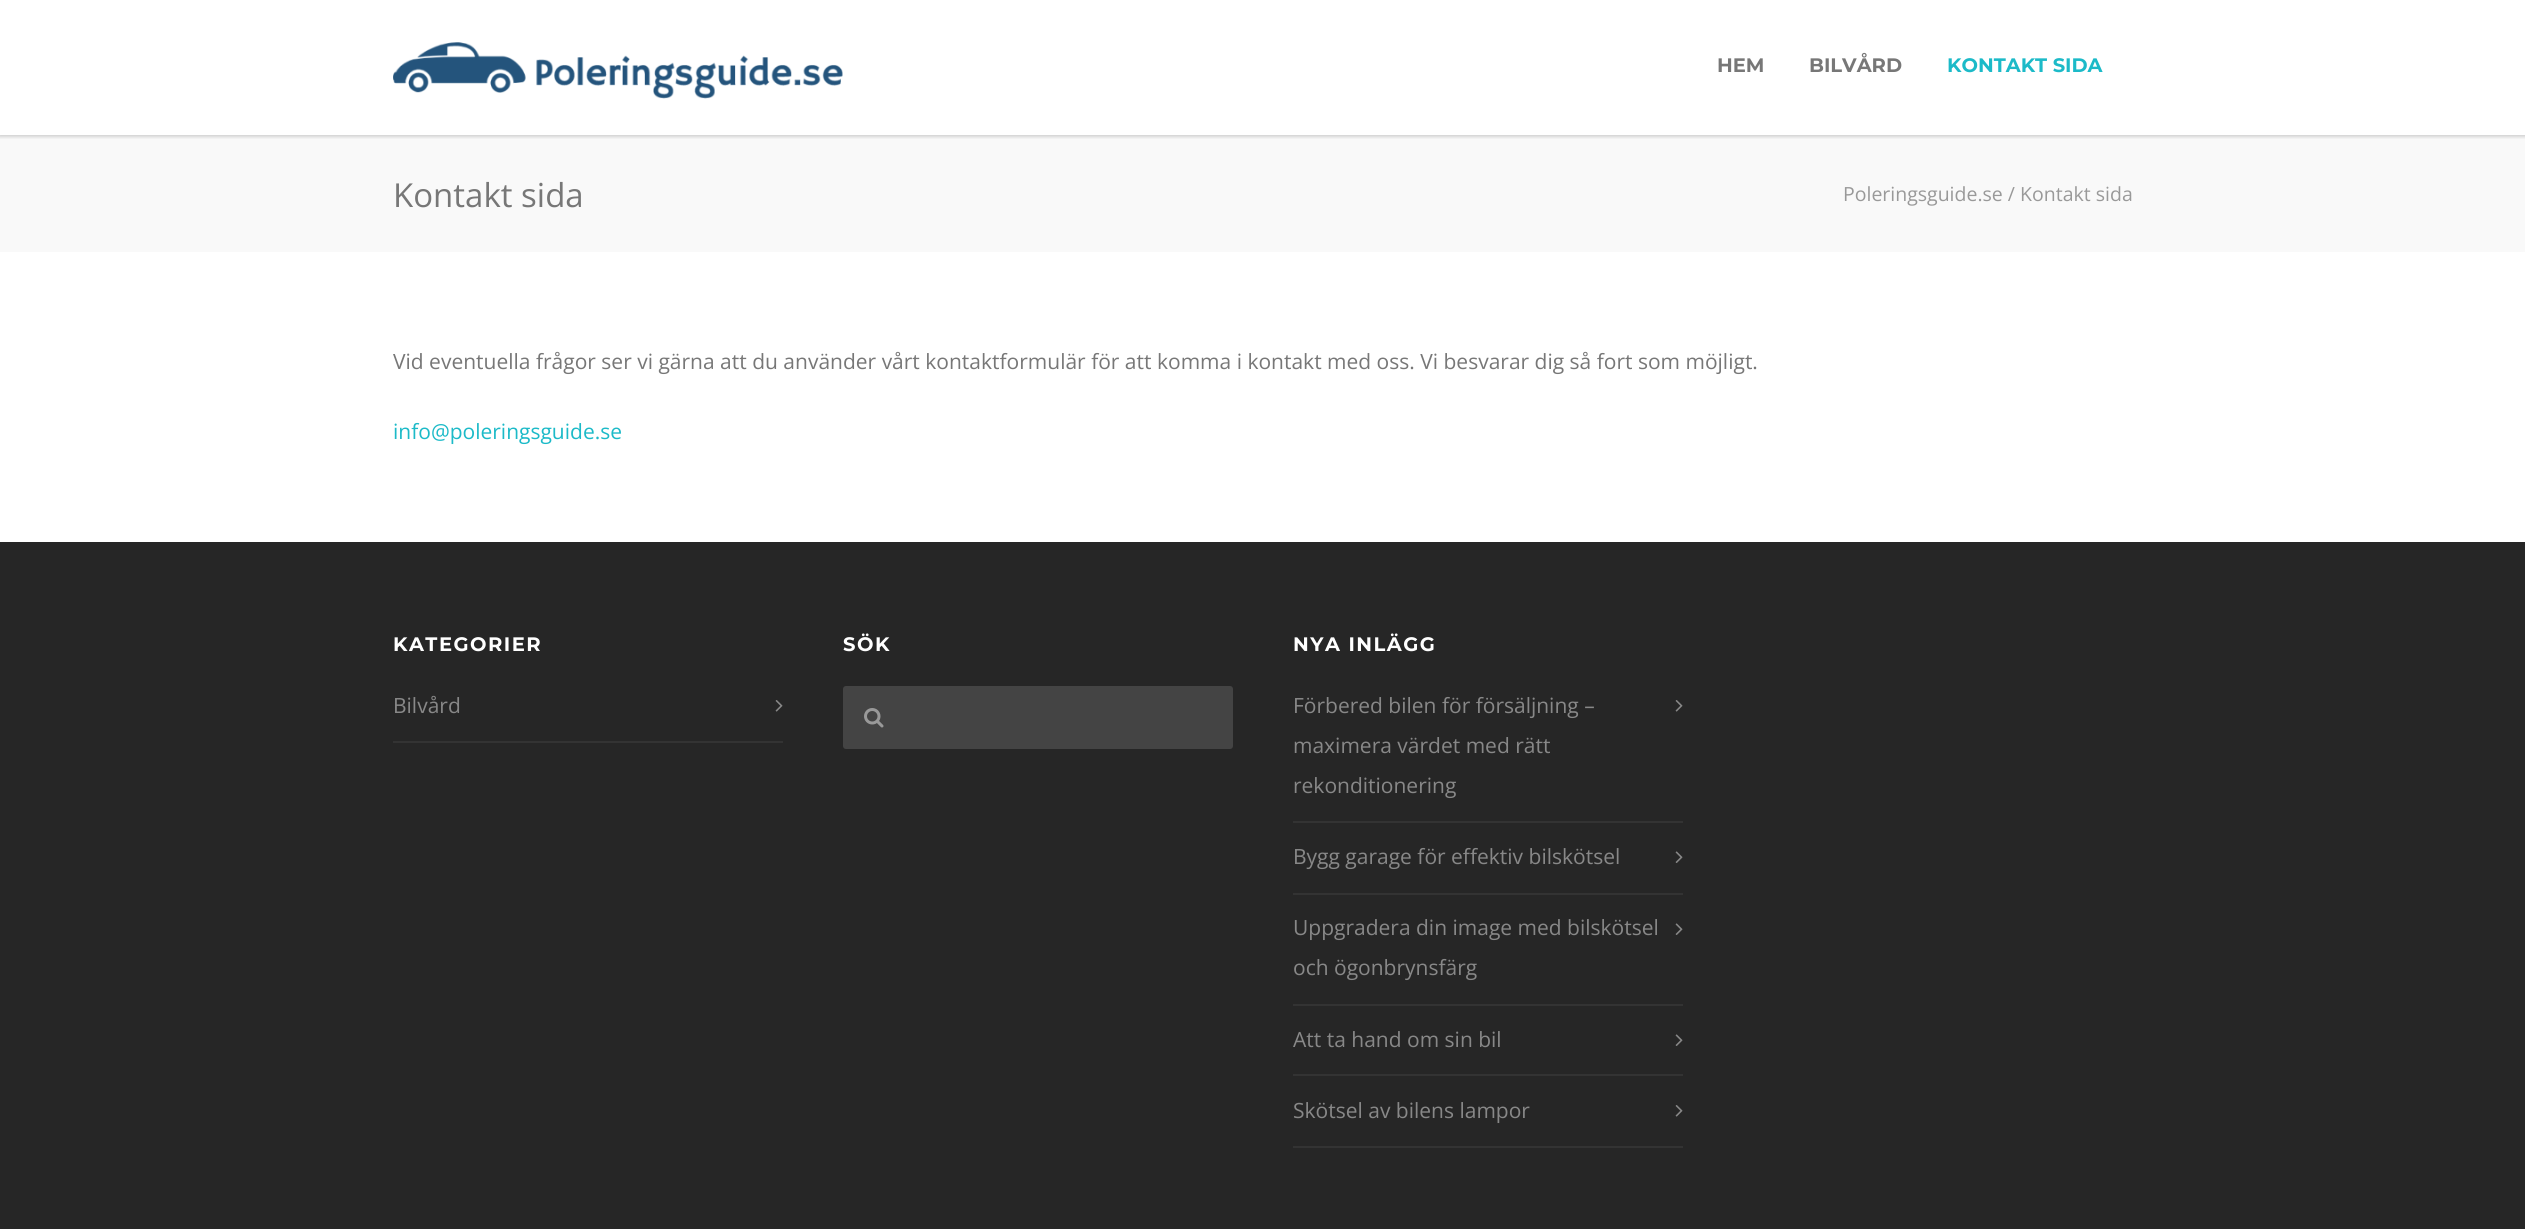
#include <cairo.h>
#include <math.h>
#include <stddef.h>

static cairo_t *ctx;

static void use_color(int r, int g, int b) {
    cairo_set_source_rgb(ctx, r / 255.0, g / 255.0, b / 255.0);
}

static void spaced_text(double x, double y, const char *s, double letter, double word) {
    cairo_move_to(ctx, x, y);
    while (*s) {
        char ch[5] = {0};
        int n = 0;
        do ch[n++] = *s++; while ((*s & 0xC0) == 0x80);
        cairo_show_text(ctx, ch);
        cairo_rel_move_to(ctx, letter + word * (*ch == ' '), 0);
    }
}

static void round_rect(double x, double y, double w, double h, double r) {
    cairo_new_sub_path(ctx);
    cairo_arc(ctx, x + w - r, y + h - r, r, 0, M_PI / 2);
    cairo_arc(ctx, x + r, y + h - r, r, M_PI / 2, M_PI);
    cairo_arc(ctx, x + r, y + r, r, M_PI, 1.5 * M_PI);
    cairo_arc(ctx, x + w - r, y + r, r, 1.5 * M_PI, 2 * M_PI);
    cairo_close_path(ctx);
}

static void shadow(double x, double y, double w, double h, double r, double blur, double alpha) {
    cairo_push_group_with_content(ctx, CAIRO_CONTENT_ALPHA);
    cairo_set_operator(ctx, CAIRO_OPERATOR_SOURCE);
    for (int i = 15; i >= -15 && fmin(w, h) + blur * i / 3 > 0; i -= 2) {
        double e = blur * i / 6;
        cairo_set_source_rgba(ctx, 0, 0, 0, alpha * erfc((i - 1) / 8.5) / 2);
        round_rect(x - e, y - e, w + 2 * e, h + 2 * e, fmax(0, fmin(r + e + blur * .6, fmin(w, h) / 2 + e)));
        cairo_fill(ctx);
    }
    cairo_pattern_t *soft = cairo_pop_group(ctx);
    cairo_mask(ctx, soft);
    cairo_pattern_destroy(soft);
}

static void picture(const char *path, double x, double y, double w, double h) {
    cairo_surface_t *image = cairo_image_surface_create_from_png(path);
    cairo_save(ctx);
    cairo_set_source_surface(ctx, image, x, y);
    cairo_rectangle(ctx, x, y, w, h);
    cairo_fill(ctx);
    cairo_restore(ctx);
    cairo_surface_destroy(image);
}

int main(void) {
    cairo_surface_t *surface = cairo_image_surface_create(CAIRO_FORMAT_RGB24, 2525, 1229);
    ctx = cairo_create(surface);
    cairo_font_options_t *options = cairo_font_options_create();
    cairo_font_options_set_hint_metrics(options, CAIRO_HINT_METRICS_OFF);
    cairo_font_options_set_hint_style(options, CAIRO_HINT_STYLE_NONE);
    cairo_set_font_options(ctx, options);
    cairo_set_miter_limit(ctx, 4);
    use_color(255, 255, 255);
    cairo_paint(ctx);
    use_color(249, 249, 249);
    cairo_rectangle(ctx, 0, 135, 2525, 117);
    cairo_fill(ctx);
    cairo_save(ctx);
    cairo_rectangle(ctx, 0, 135, 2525, 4);
    cairo_clip(ctx);
    use_color(0, 0, 0);
    shadow(-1, -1, 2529, 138, 0, 1.5, 0.16);
    cairo_restore(ctx);
    picture("img1.png", 393, 42, 450, 57);
    cairo_select_font_face(ctx, "Montserrat", CAIRO_FONT_SLANT_NORMAL, CAIRO_FONT_WEIGHT_BOLD);
    cairo_set_font_size(ctx, 19.5);
    use_color(119, 119, 119);
    cairo_move_to(ctx, 1717, 72);
    cairo_show_text(ctx, "HEM");
    cairo_move_to(ctx, 1809, 72);
    cairo_show_text(ctx, "BILVÅRD");
    use_color(28, 186, 200);
    cairo_move_to(ctx, 1947, 72);
    cairo_show_text(ctx, "KONTAKT SIDA");
    cairo_select_font_face(ctx, "Open Sans", CAIRO_FONT_SLANT_NORMAL, CAIRO_FONT_WEIGHT_NORMAL);
    cairo_set_font_size(ctx, 33);
    use_color(119, 119, 119);
    cairo_move_to(ctx, 393, 207);
    cairo_show_text(ctx, "Kontakt sida");
    cairo_set_font_size(ctx, 19.5);
    use_color(153, 153, 153);
    cairo_move_to(ctx, 1843, 201);
    cairo_show_text(ctx, "Poleringsguide.se / Kontakt sida");
    cairo_set_font_size(ctx, 21);
    use_color(119, 119, 119);
    cairo_move_to(ctx, 393, 369);
    cairo_show_text(ctx, "Vid eventuella frågor ser vi gärna att du använder vårt kontaktformulär för att komma i kontakt med oss. Vi besvarar dig så fort som möjligt.");
    use_color(28, 186, 200);
    cairo_move_to(ctx, 393, 439);
    cairo_show_text(ctx, "info@poleringsguide.se");
    use_color(38, 38, 38);
    cairo_rectangle(ctx, 0, 542, 2525, 687);
    cairo_fill(ctx);
    cairo_select_font_face(ctx, "Montserrat", CAIRO_FONT_SLANT_NORMAL, CAIRO_FONT_WEIGHT_BOLD);
    cairo_set_font_size(ctx, 19.5);
    use_color(255, 255, 255);
    spaced_text(393, 651, "KATEGORIER", 1.5, 0);
    use_color(51, 51, 51);
    cairo_rectangle(ctx, 393, 741, 390, 2);
    cairo_fill(ctx);
    cairo_select_font_face(ctx, "Open Sans", CAIRO_FONT_SLANT_NORMAL, CAIRO_FONT_WEIGHT_NORMAL);
    cairo_set_font_size(ctx, 21);
    use_color(136, 136, 136);
    cairo_move_to(ctx, 393, 713);
    cairo_show_text(ctx, "Bilvård");
    picture("img2.png", 775, 700, 8, 12);
    cairo_select_font_face(ctx, "Montserrat", CAIRO_FONT_SLANT_NORMAL, CAIRO_FONT_WEIGHT_BOLD);
    cairo_set_font_size(ctx, 19.5);
    use_color(255, 255, 255);
    spaced_text(843, 651, "SÖK", 1.5, 0);
    use_color(68, 68, 68);
    round_rect(844, 687, 388, 61, 2);
    cairo_fill_preserve(ctx);
    cairo_stroke(ctx);
    picture("img3.png", 864, 708, 20, 20);
    use_color(255, 255, 255);
    spaced_text(1293, 651, "NYA INLÄGG", 1.5, 0);
    use_color(51, 51, 51);
    cairo_rectangle(ctx, 1293, 821, 390, 2);
    cairo_fill(ctx);
    cairo_select_font_face(ctx, "Open Sans", CAIRO_FONT_SLANT_NORMAL, CAIRO_FONT_WEIGHT_NORMAL);
    cairo_set_font_size(ctx, 21);
    use_color(136, 136, 136);
    cairo_move_to(ctx, 1293, 713);
    cairo_show_text(ctx, "Förbered bilen för försäljning –");
    cairo_move_to(ctx, 1293, 753);
    cairo_show_text(ctx, "maximera värdet med rätt");
    cairo_move_to(ctx, 1293, 793);
    cairo_show_text(ctx, "rekonditionering");
    picture("img2.png", 1675, 700, 8, 12);
    use_color(51, 51, 51);
    cairo_rectangle(ctx, 1293, 893, 390, 2);
    cairo_fill(ctx);
    use_color(136, 136, 136);
    cairo_move_to(ctx, 1293, 864);
    cairo_show_text(ctx, "Bygg garage för effektiv bilskötsel");
    picture("img4.png", 1675, 851, 8, 12);
    use_color(51, 51, 51);
    cairo_rectangle(ctx, 1293, 1004, 390, 2);
    cairo_fill(ctx);
    use_color(136, 136, 136);
    cairo_move_to(ctx, 1293, 935);
    cairo_show_text(ctx, "Uppgradera din image med bilskötsel");
    cairo_move_to(ctx, 1293, 975);
    cairo_show_text(ctx, "och ögonbrynsfärg");
    picture("img4.png", 1675, 923, 8, 12);
    use_color(51, 51, 51);
    cairo_rectangle(ctx, 1293, 1074, 390, 2);
    cairo_fill(ctx);
    use_color(136, 136, 136);
    cairo_move_to(ctx, 1293, 1047);
    cairo_show_text(ctx, "Att ta hand om sin bil");
    picture("img4.png", 1675, 1034, 8, 12);
    use_color(51, 51, 51);
    cairo_rectangle(ctx, 1293, 1146, 390, 2);
    cairo_fill(ctx);
    use_color(136, 136, 136);
    cairo_move_to(ctx, 1293, 1118);
    cairo_show_text(ctx, "Skötsel av bilens lampor");
    picture("img2.png", 1675, 1105, 8, 12);
    cairo_surface_write_to_png(surface, "result.png");
    cairo_font_options_destroy(options);
    cairo_destroy(ctx);
    cairo_surface_destroy(surface);
    return 0;
}
